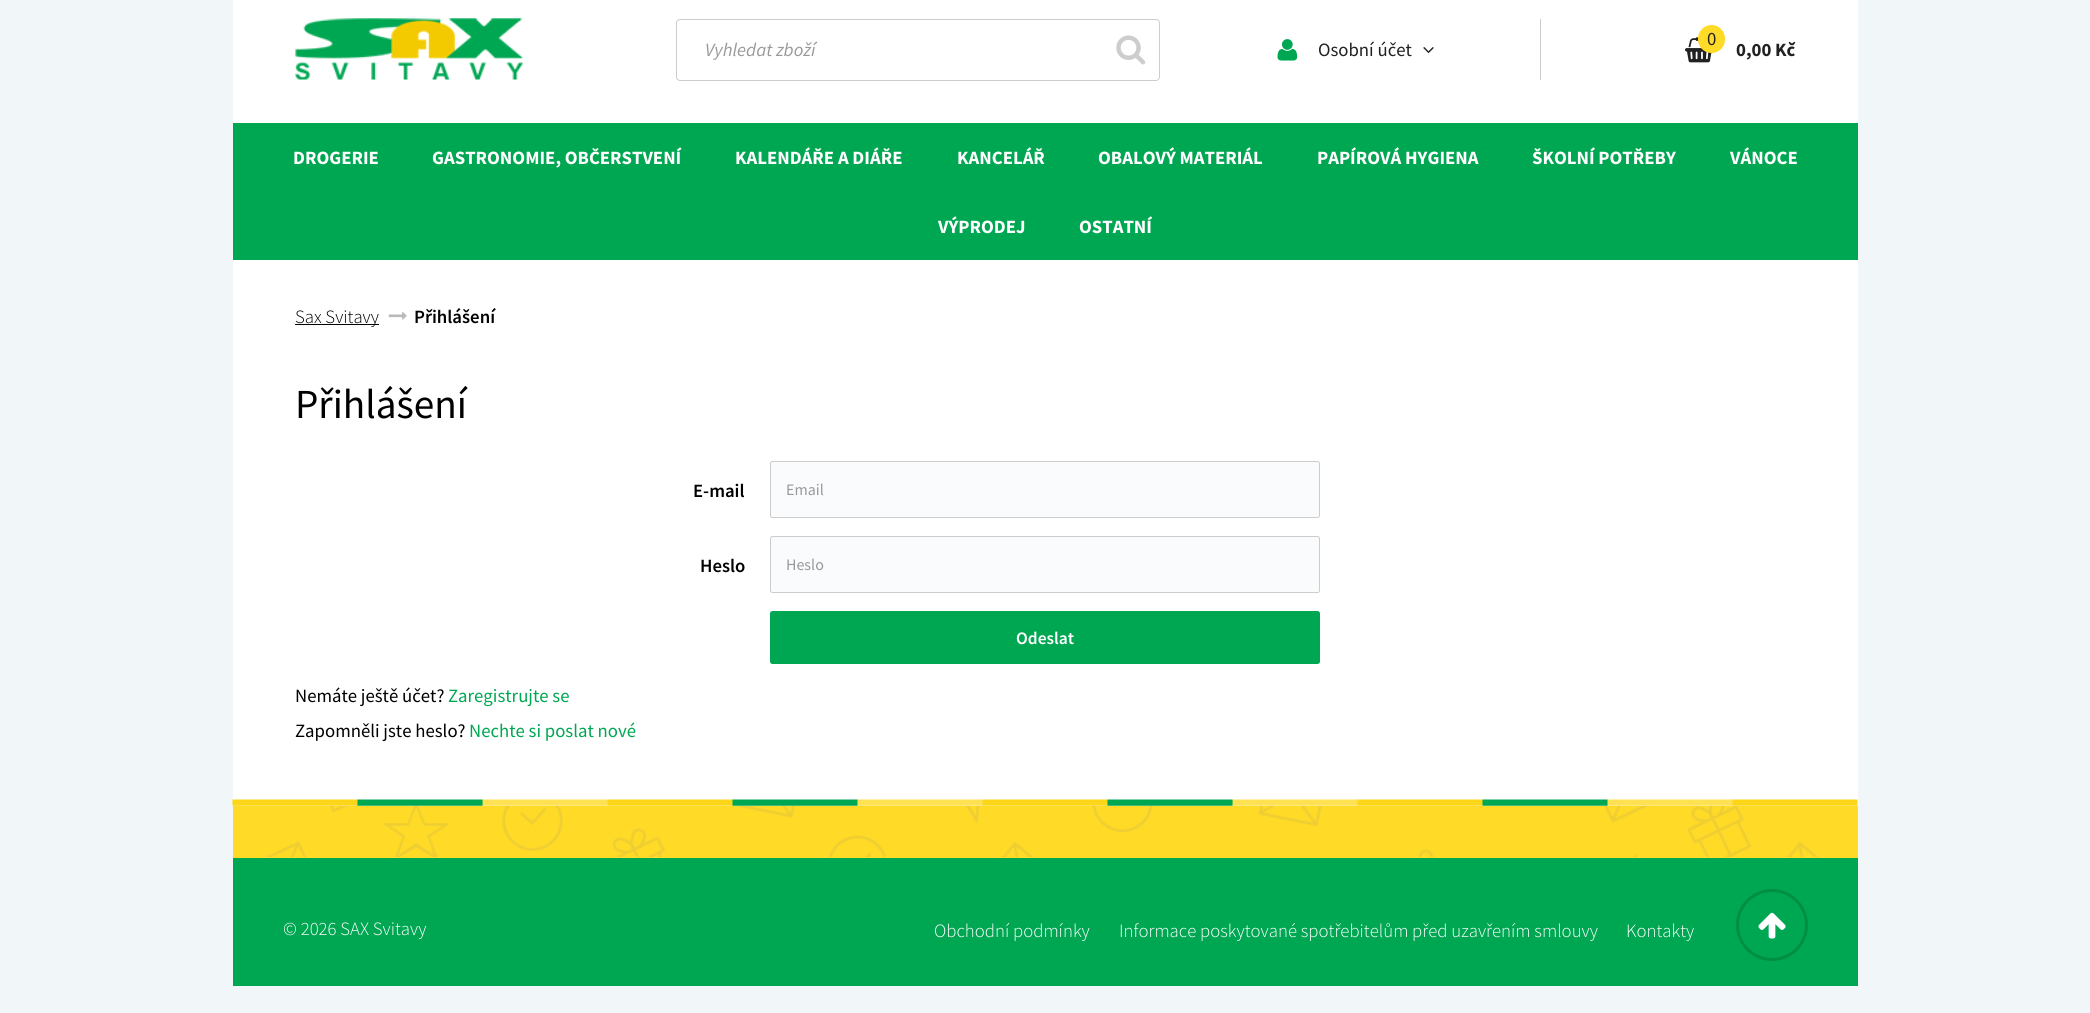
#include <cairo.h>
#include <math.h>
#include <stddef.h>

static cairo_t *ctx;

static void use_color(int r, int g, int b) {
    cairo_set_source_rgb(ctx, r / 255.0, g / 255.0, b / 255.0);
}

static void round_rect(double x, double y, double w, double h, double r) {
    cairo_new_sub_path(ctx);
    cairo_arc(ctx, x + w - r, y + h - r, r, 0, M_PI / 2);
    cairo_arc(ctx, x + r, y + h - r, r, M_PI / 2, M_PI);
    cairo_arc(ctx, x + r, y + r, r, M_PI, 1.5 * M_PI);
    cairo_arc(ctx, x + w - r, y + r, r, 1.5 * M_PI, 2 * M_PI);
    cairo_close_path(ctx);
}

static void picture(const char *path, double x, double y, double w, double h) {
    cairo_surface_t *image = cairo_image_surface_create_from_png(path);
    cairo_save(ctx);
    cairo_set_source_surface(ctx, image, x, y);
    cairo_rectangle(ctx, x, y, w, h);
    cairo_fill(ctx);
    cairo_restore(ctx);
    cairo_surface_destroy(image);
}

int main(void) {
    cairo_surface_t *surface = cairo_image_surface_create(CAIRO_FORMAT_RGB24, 2090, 1013);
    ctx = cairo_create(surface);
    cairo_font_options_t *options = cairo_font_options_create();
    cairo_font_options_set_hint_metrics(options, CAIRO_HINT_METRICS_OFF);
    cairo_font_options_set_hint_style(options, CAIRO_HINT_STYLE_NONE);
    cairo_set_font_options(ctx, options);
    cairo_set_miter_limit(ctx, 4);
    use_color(241, 247, 248);
    cairo_paint(ctx);
    use_color(255, 255, 255);
    cairo_rectangle(ctx, 233, 0, 1625, 123);
    cairo_fill(ctx);
    picture("img1.png", 295, 18, 228, 62);
    round_rect(676.5, 19.5, 483, 61, 3.5);
    use_color(205, 205, 205);
    cairo_set_line_width(ctx, 1);
    cairo_stroke(ctx);
    cairo_select_font_face(ctx, "Source Sans Pro", CAIRO_FONT_SLANT_ITALIC, CAIRO_FONT_WEIGHT_NORMAL);
    cairo_set_font_size(ctx, 18.75);
    use_color(153, 153, 153);
    cairo_move_to(ctx, 705, 56);
    cairo_show_text(ctx, "Vyhledat zboží");
    picture("img2.png", 1116, 35, 30, 30);
    use_color(204, 204, 204);
    cairo_rectangle(ctx, 1540, 19, 1, 61);
    cairo_fill(ctx);
    picture("img3.png", 1277, 39, 21, 22);
    cairo_select_font_face(ctx, "Source Sans Pro", CAIRO_FONT_SLANT_NORMAL, CAIRO_FONT_WEIGHT_NORMAL);
    use_color(33, 33, 33);
    cairo_move_to(ctx, 1318, 56);
    cairo_show_text(ctx, "Osobní účet");
    picture("img4.png", 1423, 47, 11, 6);
    picture("img5.png", 1685, 37, 27, 26);
    use_color(255, 218, 38);
    round_rect(1698, 25, 27, 28, 13.5);
    cairo_fill(ctx);
    use_color(33, 33, 33);
    cairo_move_to(ctx, 1707, 45);
    cairo_show_text(ctx, "0");
    cairo_select_font_face(ctx, "Source Sans Pro", CAIRO_FONT_SLANT_NORMAL, CAIRO_FONT_WEIGHT_BOLD);
    cairo_move_to(ctx, 1736, 56);
    cairo_show_text(ctx, "0,00 Kč");
    use_color(0, 167, 82);
    cairo_rectangle(ctx, 233, 123, 1625, 137);
    cairo_fill(ctx);
    use_color(255, 255, 255);
    cairo_move_to(ctx, 293, 164);
    cairo_show_text(ctx, "DROGERIE");
    cairo_move_to(ctx, 432, 164);
    cairo_show_text(ctx, "GASTRONOMIE, OBČERSTVENÍ");
    cairo_move_to(ctx, 735, 164);
    cairo_show_text(ctx, "KALENDÁŘE A DIÁŘE");
    cairo_move_to(ctx, 957, 164);
    cairo_show_text(ctx, "KANCELÁŘ");
    cairo_move_to(ctx, 1098, 164);
    cairo_show_text(ctx, "OBALOVÝ MATERIÁL");
    cairo_move_to(ctx, 1317, 164);
    cairo_show_text(ctx, "PAPÍROVÁ HYGIENA");
    cairo_move_to(ctx, 1532, 164);
    cairo_show_text(ctx, "ŠKOLNÍ POTŘEBY");
    cairo_move_to(ctx, 1730, 164);
    cairo_show_text(ctx, "VÁNOCE");
    cairo_move_to(ctx, 938, 233);
    cairo_show_text(ctx, "VÝPRODEJ");
    cairo_move_to(ctx, 1079, 233);
    cairo_show_text(ctx, "OSTATNÍ");
    cairo_rectangle(ctx, 233, 260, 1625, 546);
    cairo_fill(ctx);
    use_color(0, 0, 0);
    cairo_rectangle(ctx, 295, 324, 84, 1);
    cairo_fill(ctx);
    cairo_select_font_face(ctx, "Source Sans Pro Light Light", CAIRO_FONT_SLANT_NORMAL, CAIRO_FONT_WEIGHT_NORMAL);
    cairo_move_to(ctx, 295, 323);
    cairo_show_text(ctx, "Sax Svitavy");
    picture("img6.png", 388, 311, 19, 9);
    cairo_select_font_face(ctx, "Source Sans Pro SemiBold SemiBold", CAIRO_FONT_SLANT_NORMAL, CAIRO_FONT_WEIGHT_NORMAL);
    cairo_move_to(ctx, 414, 323);
    cairo_show_text(ctx, "Přihlášení");
    cairo_select_font_face(ctx, "Source Sans Pro", CAIRO_FONT_SLANT_NORMAL, CAIRO_FONT_WEIGHT_NORMAL);
    cairo_set_font_size(ctx, 41.25);
    cairo_move_to(ctx, 295, 418);
    cairo_show_text(ctx, "Přihlášení");
    cairo_select_font_face(ctx, "Source Sans Pro SemiBold SemiBold", CAIRO_FONT_SLANT_NORMAL, CAIRO_FONT_WEIGHT_NORMAL);
    cairo_set_font_size(ctx, 18.75);
    cairo_move_to(ctx, 693, 497);
    cairo_show_text(ctx, "E-mail");
    use_color(250, 251, 252);
    round_rect(770.5, 461.5, 549, 56, 2);
    cairo_fill_preserve(ctx);
    use_color(204, 204, 204);
    cairo_stroke(ctx);
    cairo_select_font_face(ctx, "Source Sans Pro", CAIRO_FONT_SLANT_NORMAL, CAIRO_FONT_WEIGHT_NORMAL);
    cairo_set_font_size(ctx, 16);
    use_color(153, 153, 153);
    cairo_move_to(ctx, 786, 495);
    cairo_show_text(ctx, "Email");
    cairo_select_font_face(ctx, "Source Sans Pro SemiBold SemiBold", CAIRO_FONT_SLANT_NORMAL, CAIRO_FONT_WEIGHT_NORMAL);
    cairo_set_font_size(ctx, 18.75);
    use_color(0, 0, 0);
    cairo_move_to(ctx, 700, 572);
    cairo_show_text(ctx, "Heslo");
    use_color(250, 251, 252);
    round_rect(770.5, 536.5, 549, 56, 2);
    cairo_fill_preserve(ctx);
    use_color(204, 204, 204);
    cairo_stroke(ctx);
    cairo_select_font_face(ctx, "Source Sans Pro", CAIRO_FONT_SLANT_NORMAL, CAIRO_FONT_WEIGHT_NORMAL);
    cairo_set_font_size(ctx, 16);
    use_color(153, 153, 153);
    cairo_move_to(ctx, 786, 570);
    cairo_show_text(ctx, "Heslo");
    use_color(0, 167, 82);
    round_rect(770, 611, 550, 53, 2.5);
    cairo_fill(ctx);
    cairo_select_font_face(ctx, "Source Sans Pro SemiBold SemiBold", CAIRO_FONT_SLANT_NORMAL, CAIRO_FONT_WEIGHT_NORMAL);
    cairo_set_font_size(ctx, 17.5);
    use_color(255, 255, 255);
    cairo_move_to(ctx, 1016, 644);
    cairo_show_text(ctx, "Odeslat");
    cairo_select_font_face(ctx, "Source Sans Pro", CAIRO_FONT_SLANT_NORMAL, CAIRO_FONT_WEIGHT_NORMAL);
    cairo_set_font_size(ctx, 18.75);
    use_color(0, 0, 0);
    cairo_move_to(ctx, 295, 702);
    cairo_show_text(ctx, "Nemáte ještě účet?");
    use_color(0, 167, 82);
    cairo_move_to(ctx, 448, 702);
    cairo_show_text(ctx, "Zaregistrujte se");
    use_color(0, 0, 0);
    cairo_move_to(ctx, 295, 737);
    cairo_show_text(ctx, "Zapomněli jste heslo?");
    use_color(0, 167, 82);
    cairo_move_to(ctx, 469, 737);
    cairo_show_text(ctx, "Nechte si poslat nové");
    picture("img7.png", 232, 799, 1626, 7);
    use_color(255, 218, 38);
    cairo_rectangle(ctx, 233, 806, 1625, 52);
    cairo_fill(ctx);
    picture("img8.png", 266, 805, 1552, 52);
    use_color(0, 167, 82);
    cairo_rectangle(ctx, 233, 858, 1625, 128);
    cairo_fill(ctx);
    cairo_select_font_face(ctx, "Source Sans Pro Light Light", CAIRO_FONT_SLANT_NORMAL, CAIRO_FONT_WEIGHT_NORMAL);
    use_color(255, 255, 255);
    cairo_move_to(ctx, 283, 935);
    cairo_show_text(ctx, "© 2026 SAX Svitavy");
    cairo_move_to(ctx, 934, 937);
    cairo_show_text(ctx, "Obchodní podmínky");
    cairo_move_to(ctx, 1119, 937);
    cairo_show_text(ctx, "Informace poskytované spotřebitelům před uzavřením smlouvy");
    cairo_move_to(ctx, 1626, 937);
    cairo_show_text(ctx, "Kontakty");
    cairo_new_path(ctx);
    cairo_arc(ctx, 1772, 925, 34.5, 0, 2 * M_PI);
    use_color(0, 142, 69);
    cairo_set_line_width(ctx, 3);
    cairo_stroke(ctx);
    picture("img9.png", 1758, 912, 28, 27);
    cairo_surface_write_to_png(surface, "result.png");
    cairo_font_options_destroy(options);
    cairo_destroy(ctx);
    cairo_surface_destroy(surface);
    return 0;
}
